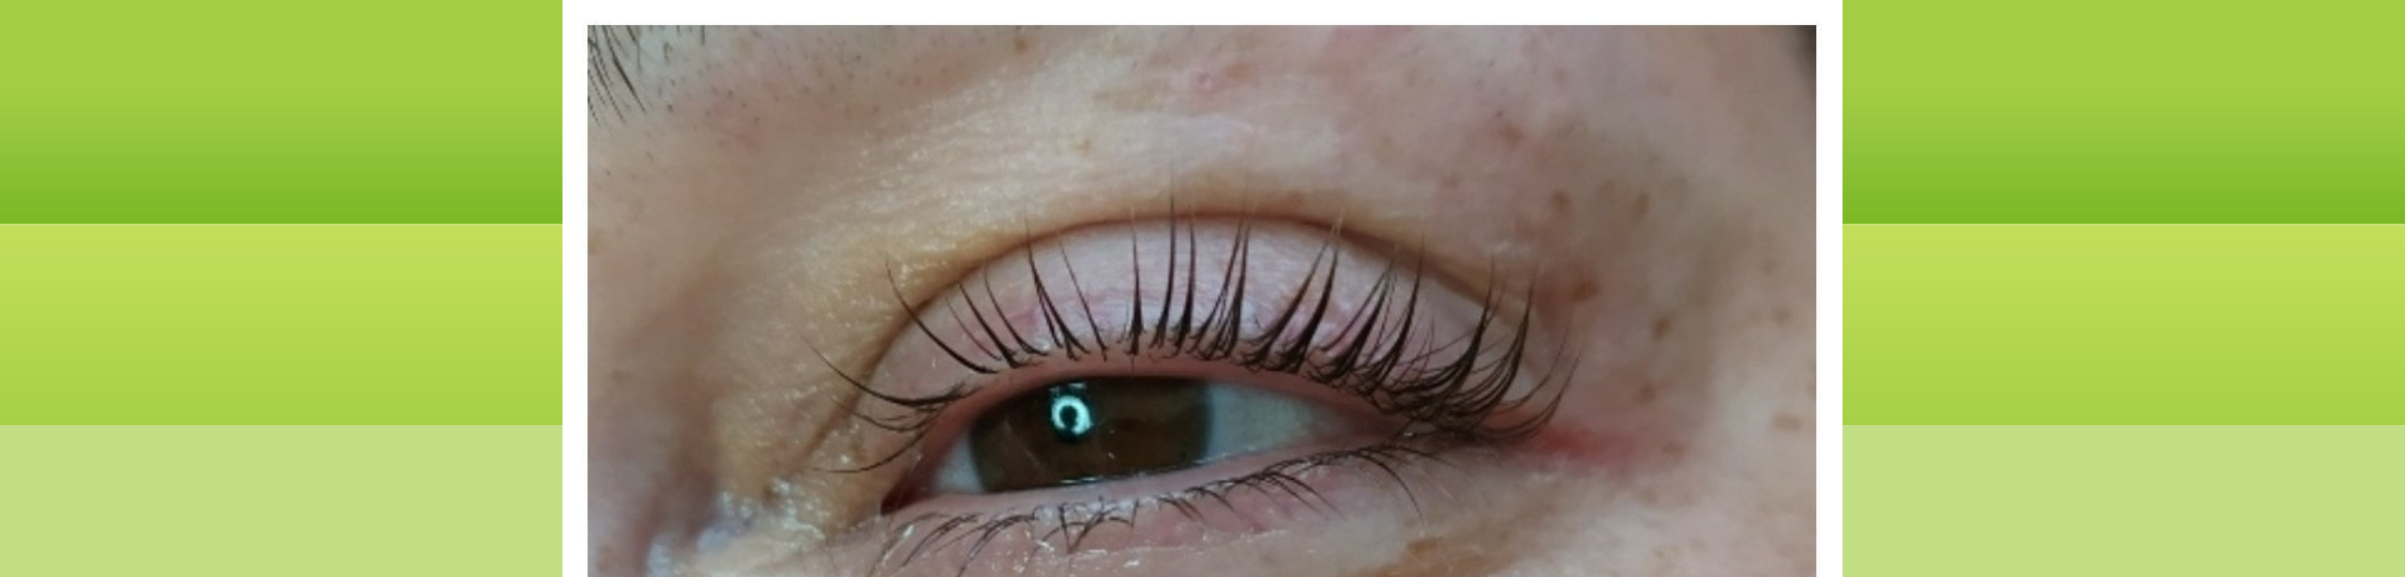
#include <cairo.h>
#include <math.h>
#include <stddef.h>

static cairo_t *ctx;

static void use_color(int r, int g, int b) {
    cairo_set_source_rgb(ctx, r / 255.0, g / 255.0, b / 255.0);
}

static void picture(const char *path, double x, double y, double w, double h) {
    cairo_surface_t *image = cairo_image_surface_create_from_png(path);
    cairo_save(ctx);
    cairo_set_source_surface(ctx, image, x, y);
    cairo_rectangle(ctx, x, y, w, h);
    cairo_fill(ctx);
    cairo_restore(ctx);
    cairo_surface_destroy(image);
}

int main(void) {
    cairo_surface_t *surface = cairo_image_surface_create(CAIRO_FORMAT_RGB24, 2405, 577);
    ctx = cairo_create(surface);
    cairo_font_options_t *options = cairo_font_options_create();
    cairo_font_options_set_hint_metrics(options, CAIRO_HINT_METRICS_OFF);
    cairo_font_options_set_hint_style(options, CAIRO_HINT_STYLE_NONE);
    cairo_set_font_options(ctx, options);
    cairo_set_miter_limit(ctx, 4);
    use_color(194, 222, 133);
    cairo_paint(ctx);
    picture("img1.png", 0, 0, 2405, 425);
    picture("img2.png", 562, 0, 1281, 577);
    cairo_surface_write_to_png(surface, "result.png");
    cairo_font_options_destroy(options);
    cairo_destroy(ctx);
    cairo_surface_destroy(surface);
    return 0;
}
